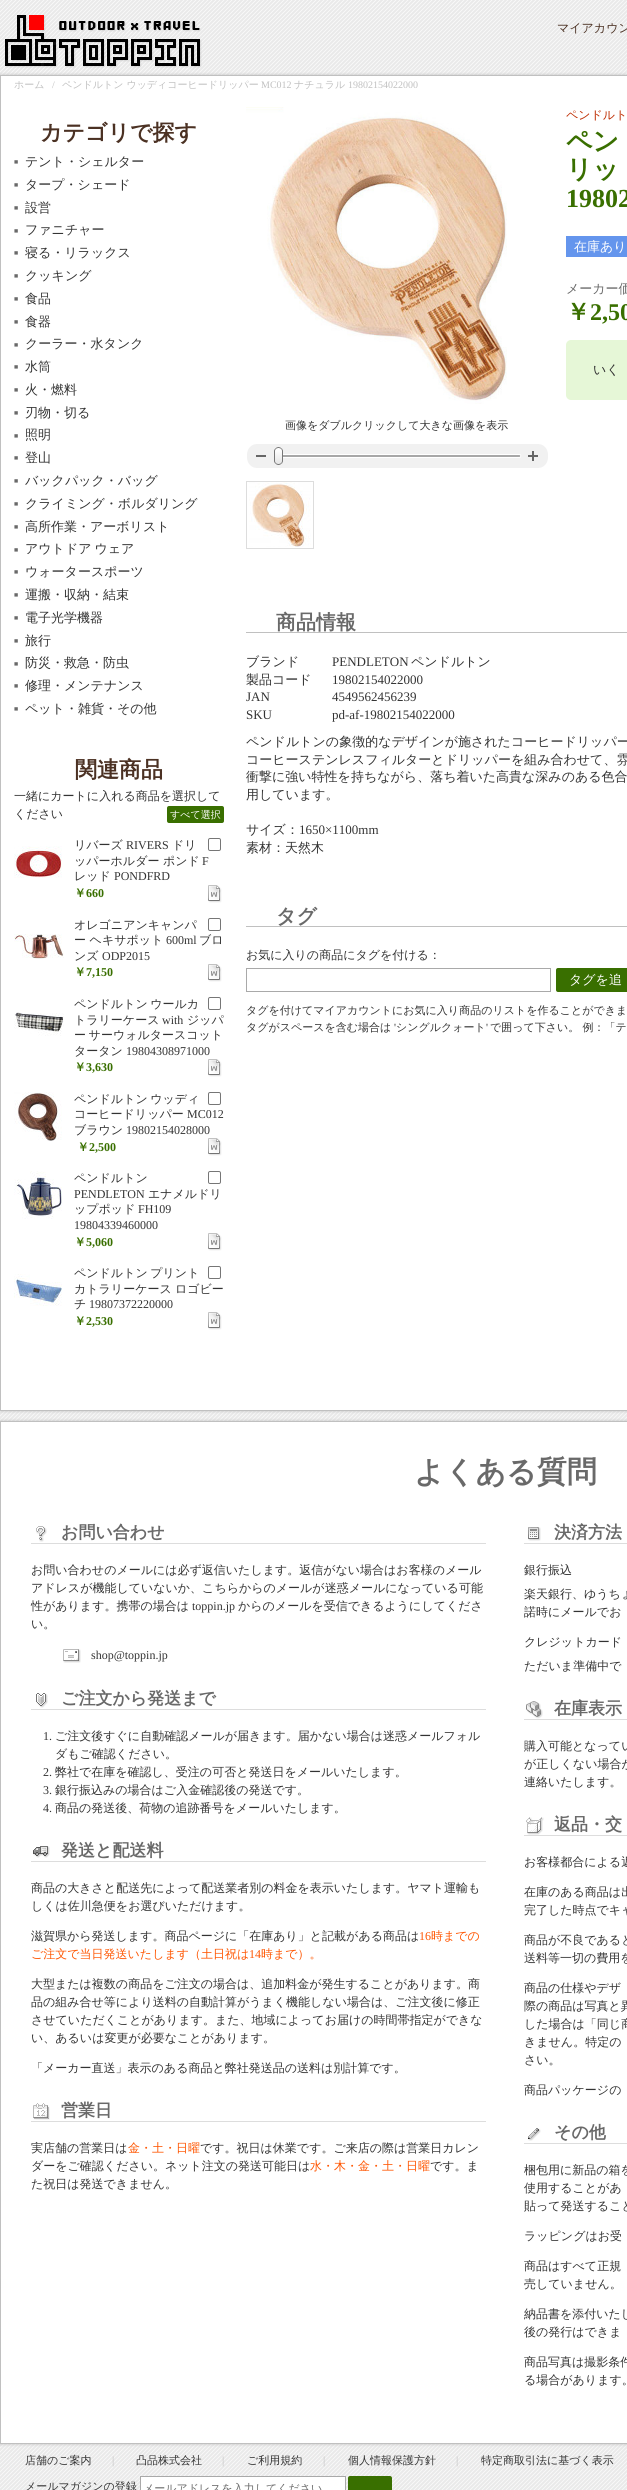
#include <cairo.h>
#include <math.h>
#include <stddef.h>

static cairo_t *ctx;

static void use_color(int r, int g, int b) {
    cairo_set_source_rgb(ctx, r / 255.0, g / 255.0, b / 255.0);
}

static void spaced_text(double x, double y, const char *s, double letter, double word) {
    cairo_move_to(ctx, x, y);
    while (*s) {
        char ch[5] = {0};
        int n = 0;
        do ch[n++] = *s++; while ((*s & 0xC0) == 0x80);
        cairo_show_text(ctx, ch);
        cairo_rel_move_to(ctx, letter + word * (*ch == ' '), 0);
    }
}

static void round_rect(double x, double y, double w, double h, double r) {
    cairo_new_sub_path(ctx);
    cairo_arc(ctx, x + w - r, y + h - r, r, 0, M_PI / 2);
    cairo_arc(ctx, x + r, y + h - r, r, M_PI / 2, M_PI);
    cairo_arc(ctx, x + r, y + r, r, M_PI, 1.5 * M_PI);
    cairo_arc(ctx, x + w - r, y + r, r, 1.5 * M_PI, 2 * M_PI);
    cairo_close_path(ctx);
}

static void shadow(double x, double y, double w, double h, double r, double blur, double alpha) {
    cairo_push_group_with_content(ctx, CAIRO_CONTENT_ALPHA);
    cairo_set_operator(ctx, CAIRO_OPERATOR_SOURCE);
    for (int i = 15; i >= -15 && fmin(w, h) + blur * i / 3 > 0; i -= 2) {
        double e = blur * i / 6;
        cairo_set_source_rgba(ctx, 0, 0, 0, alpha * erfc((i - 1) / 8.5) / 2);
        round_rect(x - e, y - e, w + 2 * e, h + 2 * e, fmax(0, fmin(r + e + blur * .6, fmin(w, h) / 2 + e)));
        cairo_fill(ctx);
    }
    cairo_pattern_t *soft = cairo_pop_group(ctx);
    cairo_mask(ctx, soft);
    cairo_pattern_destroy(soft);
}

static void picture(const char *path, double x, double y, double w, double h) {
    cairo_surface_t *image = cairo_image_surface_create_from_png(path);
    cairo_save(ctx);
    cairo_set_source_surface(ctx, image, x, y);
    cairo_rectangle(ctx, x, y, w, h);
    cairo_fill(ctx);
    cairo_restore(ctx);
    cairo_surface_destroy(image);
}

int main(void) {
    cairo_surface_t *surface = cairo_image_surface_create(CAIRO_FORMAT_RGB24, 627, 2490);
    ctx = cairo_create(surface);
    cairo_font_options_t *options = cairo_font_options_create();
    cairo_font_options_set_hint_metrics(options, CAIRO_HINT_METRICS_OFF);
    cairo_font_options_set_hint_style(options, CAIRO_HINT_STYLE_NONE);
    cairo_set_font_options(ctx, options);
    cairo_set_miter_limit(ctx, 4);
    use_color(255, 255, 255);
    cairo_paint(ctx);
    picture("img1.png", 0, 0, 627, 2490);
    picture("img2.png", 5, 15, 197, 53);
    cairo_select_font_face(ctx, "WenQuanYi Zen Hei Medium", CAIRO_FONT_SLANT_NORMAL, CAIRO_FONT_WEIGHT_NORMAL);
    cairo_set_font_size(ctx, 12);
    use_color(75, 49, 35);
    cairo_move_to(ctx, 557, 32);
    cairo_show_text(ctx, "マイアカウン");
    use_color(192, 192, 192);
    shadow(0, 75, 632, 1336, 0, 1.5, 1);
    use_color(255, 255, 255);
    cairo_rectangle(ctx, 0.5, 75.5, 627, 1335);
    cairo_fill_preserve(ctx);
    use_color(192, 192, 192);
    cairo_set_line_width(ctx, 1);
    cairo_stroke(ctx);
    cairo_set_font_size(ctx, 10);
    cairo_move_to(ctx, 14, 88);
    cairo_show_text(ctx, "ホーム");
    cairo_select_font_face(ctx, "Liberation Serif", CAIRO_FONT_SLANT_NORMAL, CAIRO_FONT_WEIGHT_NORMAL);
    cairo_move_to(ctx, 52, 88);
    cairo_show_text(ctx, "/");
    cairo_select_font_face(ctx, "WenQuanYi Zen Hei Medium", CAIRO_FONT_SLANT_NORMAL, CAIRO_FONT_WEIGHT_NORMAL);
    cairo_move_to(ctx, 62, 88);
    cairo_show_text(ctx, "ペンドルトン ウッディコーヒードリッパー");
    cairo_select_font_face(ctx, "Liberation Serif", CAIRO_FONT_SLANT_NORMAL, CAIRO_FONT_WEIGHT_NORMAL);
    cairo_move_to(ctx, 261, 88);
    cairo_show_text(ctx, "MC012");
    cairo_select_font_face(ctx, "WenQuanYi Zen Hei Medium", CAIRO_FONT_SLANT_NORMAL, CAIRO_FONT_WEIGHT_NORMAL);
    cairo_move_to(ctx, 294, 88);
    cairo_show_text(ctx, "ナチュラル");
    cairo_select_font_face(ctx, "Liberation Serif", CAIRO_FONT_SLANT_NORMAL, CAIRO_FONT_WEIGHT_NORMAL);
    cairo_move_to(ctx, 348, 88);
    cairo_show_text(ctx, "19802154022000");
    cairo_select_font_face(ctx, "WenQuanYi Zen Hei", CAIRO_FONT_SLANT_NORMAL, CAIRO_FONT_WEIGHT_BOLD);
    cairo_set_font_size(ctx, 22);
    use_color(75, 49, 35);
    cairo_move_to(ctx, 40, 140);
    cairo_show_text(ctx, "カテゴリで探す");
    cairo_select_font_face(ctx, "Liberation Serif", CAIRO_FONT_SLANT_NORMAL, CAIRO_FONT_WEIGHT_NORMAL);
    cairo_set_font_size(ctx, 7);
    use_color(105, 105, 105);
    cairo_move_to(ctx, 14, 164);
    cairo_show_text(ctx, "■");
    cairo_select_font_face(ctx, "WenQuanYi Zen Hei Medium", CAIRO_FONT_SLANT_NORMAL, CAIRO_FONT_WEIGHT_NORMAL);
    cairo_set_font_size(ctx, 13);
    use_color(51, 51, 51);
    cairo_move_to(ctx, 25, 166);
    cairo_show_text(ctx, "テント・シェルター");
    cairo_select_font_face(ctx, "Liberation Serif", CAIRO_FONT_SLANT_NORMAL, CAIRO_FONT_WEIGHT_NORMAL);
    cairo_set_font_size(ctx, 7);
    use_color(105, 105, 105);
    cairo_move_to(ctx, 14, 187);
    cairo_show_text(ctx, "■");
    cairo_select_font_face(ctx, "WenQuanYi Zen Hei Medium", CAIRO_FONT_SLANT_NORMAL, CAIRO_FONT_WEIGHT_NORMAL);
    cairo_set_font_size(ctx, 13);
    use_color(51, 51, 51);
    cairo_move_to(ctx, 25, 189);
    cairo_show_text(ctx, "タープ・シェード");
    cairo_select_font_face(ctx, "Liberation Serif", CAIRO_FONT_SLANT_NORMAL, CAIRO_FONT_WEIGHT_NORMAL);
    cairo_set_font_size(ctx, 7);
    use_color(105, 105, 105);
    cairo_move_to(ctx, 14, 210);
    cairo_show_text(ctx, "■");
    cairo_select_font_face(ctx, "WenQuanYi Zen Hei Medium", CAIRO_FONT_SLANT_NORMAL, CAIRO_FONT_WEIGHT_NORMAL);
    cairo_set_font_size(ctx, 13);
    use_color(51, 51, 51);
    cairo_move_to(ctx, 25, 212);
    cairo_show_text(ctx, "設営");
    cairo_select_font_face(ctx, "Liberation Serif", CAIRO_FONT_SLANT_NORMAL, CAIRO_FONT_WEIGHT_NORMAL);
    cairo_set_font_size(ctx, 7);
    use_color(105, 105, 105);
    cairo_move_to(ctx, 14, 233);
    cairo_show_text(ctx, "■");
    cairo_select_font_face(ctx, "WenQuanYi Zen Hei Medium", CAIRO_FONT_SLANT_NORMAL, CAIRO_FONT_WEIGHT_NORMAL);
    cairo_set_font_size(ctx, 13);
    use_color(51, 51, 51);
    cairo_move_to(ctx, 25, 234);
    cairo_show_text(ctx, "ファニチャー");
    cairo_select_font_face(ctx, "Liberation Serif", CAIRO_FONT_SLANT_NORMAL, CAIRO_FONT_WEIGHT_NORMAL);
    cairo_set_font_size(ctx, 7);
    use_color(105, 105, 105);
    cairo_move_to(ctx, 14, 255);
    cairo_show_text(ctx, "■");
    cairo_select_font_face(ctx, "WenQuanYi Zen Hei Medium", CAIRO_FONT_SLANT_NORMAL, CAIRO_FONT_WEIGHT_NORMAL);
    cairo_set_font_size(ctx, 13);
    use_color(51, 51, 51);
    cairo_move_to(ctx, 25, 257);
    cairo_show_text(ctx, "寝る・リラックス");
    cairo_select_font_face(ctx, "Liberation Serif", CAIRO_FONT_SLANT_NORMAL, CAIRO_FONT_WEIGHT_NORMAL);
    cairo_set_font_size(ctx, 7);
    use_color(105, 105, 105);
    cairo_move_to(ctx, 14, 278);
    cairo_show_text(ctx, "■");
    cairo_select_font_face(ctx, "WenQuanYi Zen Hei Medium", CAIRO_FONT_SLANT_NORMAL, CAIRO_FONT_WEIGHT_NORMAL);
    cairo_set_font_size(ctx, 13);
    use_color(51, 51, 51);
    cairo_move_to(ctx, 25, 280);
    cairo_show_text(ctx, "クッキング");
    cairo_select_font_face(ctx, "Liberation Serif", CAIRO_FONT_SLANT_NORMAL, CAIRO_FONT_WEIGHT_NORMAL);
    cairo_set_font_size(ctx, 7);
    use_color(105, 105, 105);
    cairo_move_to(ctx, 14, 301);
    cairo_show_text(ctx, "■");
    cairo_select_font_face(ctx, "WenQuanYi Zen Hei Medium", CAIRO_FONT_SLANT_NORMAL, CAIRO_FONT_WEIGHT_NORMAL);
    cairo_set_font_size(ctx, 13);
    use_color(51, 51, 51);
    cairo_move_to(ctx, 25, 303);
    cairo_show_text(ctx, "食品");
    cairo_select_font_face(ctx, "Liberation Serif", CAIRO_FONT_SLANT_NORMAL, CAIRO_FONT_WEIGHT_NORMAL);
    cairo_set_font_size(ctx, 7);
    use_color(105, 105, 105);
    cairo_move_to(ctx, 14, 324);
    cairo_show_text(ctx, "■");
    cairo_select_font_face(ctx, "WenQuanYi Zen Hei Medium", CAIRO_FONT_SLANT_NORMAL, CAIRO_FONT_WEIGHT_NORMAL);
    cairo_set_font_size(ctx, 13);
    use_color(51, 51, 51);
    cairo_move_to(ctx, 25, 326);
    cairo_show_text(ctx, "食器");
    cairo_select_font_face(ctx, "Liberation Serif", CAIRO_FONT_SLANT_NORMAL, CAIRO_FONT_WEIGHT_NORMAL);
    cairo_set_font_size(ctx, 7);
    use_color(105, 105, 105);
    cairo_move_to(ctx, 14, 347);
    cairo_show_text(ctx, "■");
    cairo_select_font_face(ctx, "WenQuanYi Zen Hei Medium", CAIRO_FONT_SLANT_NORMAL, CAIRO_FONT_WEIGHT_NORMAL);
    cairo_set_font_size(ctx, 13);
    use_color(51, 51, 51);
    cairo_move_to(ctx, 25, 348);
    cairo_show_text(ctx, "クーラー・水タンク");
    cairo_select_font_face(ctx, "Liberation Serif", CAIRO_FONT_SLANT_NORMAL, CAIRO_FONT_WEIGHT_NORMAL);
    cairo_set_font_size(ctx, 7);
    use_color(105, 105, 105);
    cairo_move_to(ctx, 14, 369);
    cairo_show_text(ctx, "■");
    cairo_select_font_face(ctx, "WenQuanYi Zen Hei Medium", CAIRO_FONT_SLANT_NORMAL, CAIRO_FONT_WEIGHT_NORMAL);
    cairo_set_font_size(ctx, 13);
    use_color(51, 51, 51);
    cairo_move_to(ctx, 25, 371);
    cairo_show_text(ctx, "水筒");
    cairo_select_font_face(ctx, "Liberation Serif", CAIRO_FONT_SLANT_NORMAL, CAIRO_FONT_WEIGHT_NORMAL);
    cairo_set_font_size(ctx, 7);
    use_color(105, 105, 105);
    cairo_move_to(ctx, 14, 392);
    cairo_show_text(ctx, "■");
    cairo_select_font_face(ctx, "WenQuanYi Zen Hei Medium", CAIRO_FONT_SLANT_NORMAL, CAIRO_FONT_WEIGHT_NORMAL);
    cairo_set_font_size(ctx, 13);
    use_color(51, 51, 51);
    cairo_move_to(ctx, 25, 394);
    cairo_show_text(ctx, "火・燃料");
    cairo_select_font_face(ctx, "Liberation Serif", CAIRO_FONT_SLANT_NORMAL, CAIRO_FONT_WEIGHT_NORMAL);
    cairo_set_font_size(ctx, 7);
    use_color(105, 105, 105);
    cairo_move_to(ctx, 14, 415);
    cairo_show_text(ctx, "■");
    cairo_select_font_face(ctx, "WenQuanYi Zen Hei Medium", CAIRO_FONT_SLANT_NORMAL, CAIRO_FONT_WEIGHT_NORMAL);
    cairo_set_font_size(ctx, 13);
    use_color(51, 51, 51);
    cairo_move_to(ctx, 25, 417);
    cairo_show_text(ctx, "刃物・切る");
    cairo_select_font_face(ctx, "Liberation Serif", CAIRO_FONT_SLANT_NORMAL, CAIRO_FONT_WEIGHT_NORMAL);
    cairo_set_font_size(ctx, 7);
    use_color(105, 105, 105);
    cairo_move_to(ctx, 14, 438);
    cairo_show_text(ctx, "■");
    cairo_select_font_face(ctx, "WenQuanYi Zen Hei Medium", CAIRO_FONT_SLANT_NORMAL, CAIRO_FONT_WEIGHT_NORMAL);
    cairo_set_font_size(ctx, 13);
    use_color(51, 51, 51);
    cairo_move_to(ctx, 25, 439);
    cairo_show_text(ctx, "照明");
    cairo_select_font_face(ctx, "Liberation Serif", CAIRO_FONT_SLANT_NORMAL, CAIRO_FONT_WEIGHT_NORMAL);
    cairo_set_font_size(ctx, 7);
    use_color(105, 105, 105);
    cairo_move_to(ctx, 14, 460);
    cairo_show_text(ctx, "■");
    cairo_select_font_face(ctx, "WenQuanYi Zen Hei Medium", CAIRO_FONT_SLANT_NORMAL, CAIRO_FONT_WEIGHT_NORMAL);
    cairo_set_font_size(ctx, 13);
    use_color(51, 51, 51);
    cairo_move_to(ctx, 25, 462);
    cairo_show_text(ctx, "登山");
    cairo_select_font_face(ctx, "Liberation Serif", CAIRO_FONT_SLANT_NORMAL, CAIRO_FONT_WEIGHT_NORMAL);
    cairo_set_font_size(ctx, 7);
    use_color(105, 105, 105);
    cairo_move_to(ctx, 14, 483);
    cairo_show_text(ctx, "■");
    cairo_select_font_face(ctx, "WenQuanYi Zen Hei Medium", CAIRO_FONT_SLANT_NORMAL, CAIRO_FONT_WEIGHT_NORMAL);
    cairo_set_font_size(ctx, 13);
    use_color(51, 51, 51);
    cairo_move_to(ctx, 25, 485);
    cairo_show_text(ctx, "バックパック・バッグ");
    cairo_select_font_face(ctx, "Liberation Serif", CAIRO_FONT_SLANT_NORMAL, CAIRO_FONT_WEIGHT_NORMAL);
    cairo_set_font_size(ctx, 7);
    use_color(105, 105, 105);
    cairo_move_to(ctx, 14, 506);
    cairo_show_text(ctx, "■");
    cairo_select_font_face(ctx, "WenQuanYi Zen Hei Medium", CAIRO_FONT_SLANT_NORMAL, CAIRO_FONT_WEIGHT_NORMAL);
    cairo_set_font_size(ctx, 13);
    use_color(51, 51, 51);
    cairo_move_to(ctx, 25, 508);
    cairo_show_text(ctx, "クライミング・ボルダリング");
    cairo_select_font_face(ctx, "Liberation Serif", CAIRO_FONT_SLANT_NORMAL, CAIRO_FONT_WEIGHT_NORMAL);
    cairo_set_font_size(ctx, 7);
    use_color(105, 105, 105);
    cairo_move_to(ctx, 14, 529);
    cairo_show_text(ctx, "■");
    cairo_select_font_face(ctx, "WenQuanYi Zen Hei Medium", CAIRO_FONT_SLANT_NORMAL, CAIRO_FONT_WEIGHT_NORMAL);
    cairo_set_font_size(ctx, 13);
    use_color(51, 51, 51);
    cairo_move_to(ctx, 25, 531);
    cairo_show_text(ctx, "高所作業・アーボリスト");
    cairo_select_font_face(ctx, "Liberation Serif", CAIRO_FONT_SLANT_NORMAL, CAIRO_FONT_WEIGHT_NORMAL);
    cairo_set_font_size(ctx, 7);
    use_color(105, 105, 105);
    cairo_move_to(ctx, 14, 552);
    cairo_show_text(ctx, "■");
    cairo_select_font_face(ctx, "WenQuanYi Zen Hei Medium", CAIRO_FONT_SLANT_NORMAL, CAIRO_FONT_WEIGHT_NORMAL);
    cairo_set_font_size(ctx, 13);
    use_color(51, 51, 51);
    spaced_text(25, 553, "アウトドア ウェア", 0, -1);
    cairo_select_font_face(ctx, "Liberation Serif", CAIRO_FONT_SLANT_NORMAL, CAIRO_FONT_WEIGHT_NORMAL);
    cairo_set_font_size(ctx, 7);
    use_color(105, 105, 105);
    cairo_move_to(ctx, 14, 574);
    cairo_show_text(ctx, "■");
    cairo_select_font_face(ctx, "WenQuanYi Zen Hei Medium", CAIRO_FONT_SLANT_NORMAL, CAIRO_FONT_WEIGHT_NORMAL);
    cairo_set_font_size(ctx, 13);
    use_color(51, 51, 51);
    cairo_move_to(ctx, 25, 576);
    cairo_show_text(ctx, "ウォータースポーツ");
    cairo_select_font_face(ctx, "Liberation Serif", CAIRO_FONT_SLANT_NORMAL, CAIRO_FONT_WEIGHT_NORMAL);
    cairo_set_font_size(ctx, 7);
    use_color(105, 105, 105);
    cairo_move_to(ctx, 14, 597);
    cairo_show_text(ctx, "■");
    cairo_select_font_face(ctx, "WenQuanYi Zen Hei Medium", CAIRO_FONT_SLANT_NORMAL, CAIRO_FONT_WEIGHT_NORMAL);
    cairo_set_font_size(ctx, 13);
    use_color(51, 51, 51);
    cairo_move_to(ctx, 25, 599);
    cairo_show_text(ctx, "運搬・収納・結束");
    cairo_select_font_face(ctx, "Liberation Serif", CAIRO_FONT_SLANT_NORMAL, CAIRO_FONT_WEIGHT_NORMAL);
    cairo_set_font_size(ctx, 7);
    use_color(105, 105, 105);
    cairo_move_to(ctx, 14, 620);
    cairo_show_text(ctx, "■");
    cairo_select_font_face(ctx, "WenQuanYi Zen Hei Medium", CAIRO_FONT_SLANT_NORMAL, CAIRO_FONT_WEIGHT_NORMAL);
    cairo_set_font_size(ctx, 13);
    use_color(51, 51, 51);
    cairo_move_to(ctx, 25, 622);
    cairo_show_text(ctx, "電子光学機器");
    cairo_select_font_face(ctx, "Liberation Serif", CAIRO_FONT_SLANT_NORMAL, CAIRO_FONT_WEIGHT_NORMAL);
    cairo_set_font_size(ctx, 7);
    use_color(105, 105, 105);
    cairo_move_to(ctx, 14, 643);
    cairo_show_text(ctx, "■");
    cairo_select_font_face(ctx, "WenQuanYi Zen Hei Medium", CAIRO_FONT_SLANT_NORMAL, CAIRO_FONT_WEIGHT_NORMAL);
    cairo_set_font_size(ctx, 13);
    use_color(51, 51, 51);
    cairo_move_to(ctx, 25, 645);
    cairo_show_text(ctx, "旅行");
    cairo_select_font_face(ctx, "Liberation Serif", CAIRO_FONT_SLANT_NORMAL, CAIRO_FONT_WEIGHT_NORMAL);
    cairo_set_font_size(ctx, 7);
    use_color(105, 105, 105);
    cairo_move_to(ctx, 14, 666);
    cairo_show_text(ctx, "■");
    cairo_select_font_face(ctx, "WenQuanYi Zen Hei Medium", CAIRO_FONT_SLANT_NORMAL, CAIRO_FONT_WEIGHT_NORMAL);
    cairo_set_font_size(ctx, 13);
    use_color(51, 51, 51);
    cairo_move_to(ctx, 25, 667);
    cairo_show_text(ctx, "防災・救急・防虫");
    cairo_select_font_face(ctx, "Liberation Serif", CAIRO_FONT_SLANT_NORMAL, CAIRO_FONT_WEIGHT_NORMAL);
    cairo_set_font_size(ctx, 7);
    use_color(105, 105, 105);
    cairo_move_to(ctx, 14, 688);
    cairo_show_text(ctx, "■");
    cairo_select_font_face(ctx, "WenQuanYi Zen Hei Medium", CAIRO_FONT_SLANT_NORMAL, CAIRO_FONT_WEIGHT_NORMAL);
    cairo_set_font_size(ctx, 13);
    use_color(51, 51, 51);
    cairo_move_to(ctx, 25, 690);
    cairo_show_text(ctx, "修理・メンテナンス");
    cairo_select_font_face(ctx, "Liberation Serif", CAIRO_FONT_SLANT_NORMAL, CAIRO_FONT_WEIGHT_NORMAL);
    cairo_set_font_size(ctx, 7);
    use_color(105, 105, 105);
    cairo_move_to(ctx, 14, 711);
    cairo_show_text(ctx, "■");
    cairo_select_font_face(ctx, "WenQuanYi Zen Hei Medium", CAIRO_FONT_SLANT_NORMAL, CAIRO_FONT_WEIGHT_NORMAL);
    cairo_set_font_size(ctx, 13);
    use_color(51, 51, 51);
    cairo_move_to(ctx, 25, 713);
    cairo_show_text(ctx, "ペット・雑貨・その他");
    cairo_select_font_face(ctx, "WenQuanYi Zen Hei", CAIRO_FONT_SLANT_NORMAL, CAIRO_FONT_WEIGHT_BOLD);
    cairo_set_font_size(ctx, 22);
    use_color(75, 49, 35);
    cairo_move_to(ctx, 75, 777);
    cairo_show_text(ctx, "関連商品");
    cairo_select_font_face(ctx, "WenQuanYi Zen Hei Medium", CAIRO_FONT_SLANT_NORMAL, CAIRO_FONT_WEIGHT_NORMAL);
    cairo_set_font_size(ctx, 12);
    use_color(51, 51, 51);
    cairo_move_to(ctx, 14, 800);
    cairo_show_text(ctx, "一緒にカートに入れる商品を選択して");
    cairo_move_to(ctx, 14, 818);
    cairo_show_text(ctx, "ください");
    use_color(57, 111, 0);
    round_rect(167, 806, 57, 17, 2);
    cairo_fill(ctx);
    cairo_set_font_size(ctx, 10);
    use_color(255, 255, 255);
    cairo_move_to(ctx, 170, 818);
    cairo_show_text(ctx, "すべて選択");
    picture("img3.png", 14, 846, 48, 32);
    cairo_set_font_size(ctx, 12);
    use_color(51, 51, 51);
    cairo_move_to(ctx, 74, 849);
    cairo_show_text(ctx, "リバーズ");
    cairo_select_font_face(ctx, "Liberation Serif", CAIRO_FONT_SLANT_NORMAL, CAIRO_FONT_WEIGHT_NORMAL);
    cairo_move_to(ctx, 126, 849);
    cairo_show_text(ctx, "RIVERS");
    cairo_select_font_face(ctx, "WenQuanYi Zen Hei Medium", CAIRO_FONT_SLANT_NORMAL, CAIRO_FONT_WEIGHT_NORMAL);
    cairo_move_to(ctx, 172, 849);
    cairo_show_text(ctx, "ドリ");
    cairo_move_to(ctx, 74, 865);
    cairo_show_text(ctx, "ッパーホルダー ポンド");
    cairo_select_font_face(ctx, "Liberation Serif", CAIRO_FONT_SLANT_NORMAL, CAIRO_FONT_WEIGHT_NORMAL);
    cairo_move_to(ctx, 202, 865);
    cairo_show_text(ctx, "F");
    cairo_select_font_face(ctx, "WenQuanYi Zen Hei Medium", CAIRO_FONT_SLANT_NORMAL, CAIRO_FONT_WEIGHT_NORMAL);
    cairo_move_to(ctx, 74, 880);
    cairo_show_text(ctx, "レッド");
    cairo_select_font_face(ctx, "Liberation Serif", CAIRO_FONT_SLANT_NORMAL, CAIRO_FONT_WEIGHT_NORMAL);
    cairo_move_to(ctx, 114, 880);
    cairo_show_text(ctx, "PONDFRD");
    cairo_select_font_face(ctx, "WenQuanYi Zen Hei", CAIRO_FONT_SLANT_NORMAL, CAIRO_FONT_WEIGHT_BOLD);
    use_color(57, 111, 0);
    cairo_move_to(ctx, 74, 897);
    cairo_show_text(ctx, "￥");
    cairo_select_font_face(ctx, "Liberation Serif", CAIRO_FONT_SLANT_NORMAL, CAIRO_FONT_WEIGHT_BOLD);
    cairo_move_to(ctx, 86, 897);
    cairo_show_text(ctx, "660");
    picture("img4.png", 208, 885, 14, 18);
    round_rect(208.5, 838.5, 12, 12, 1.5);
    use_color(118, 118, 118);
    cairo_stroke(ctx);
    round_rect(208.5, 918.5, 12, 12, 1.5);
    cairo_stroke(ctx);
    picture("img5.png", 14, 934, 50, 25);
    cairo_select_font_face(ctx, "WenQuanYi Zen Hei Medium", CAIRO_FONT_SLANT_NORMAL, CAIRO_FONT_WEIGHT_NORMAL);
    use_color(51, 51, 51);
    cairo_move_to(ctx, 74, 929);
    cairo_show_text(ctx, "オレゴニアンキャンパ");
    cairo_move_to(ctx, 74, 944);
    cairo_show_text(ctx, "ー ヘキサポット");
    cairo_select_font_face(ctx, "Liberation Serif", CAIRO_FONT_SLANT_NORMAL, CAIRO_FONT_WEIGHT_NORMAL);
    cairo_move_to(ctx, 166, 944);
    cairo_show_text(ctx, "600ml");
    cairo_select_font_face(ctx, "WenQuanYi Zen Hei Medium", CAIRO_FONT_SLANT_NORMAL, CAIRO_FONT_WEIGHT_NORMAL);
    cairo_move_to(ctx, 199, 944);
    cairo_show_text(ctx, "ブロ");
    cairo_move_to(ctx, 74, 960);
    cairo_show_text(ctx, "ンズ");
    cairo_select_font_face(ctx, "Liberation Serif", CAIRO_FONT_SLANT_NORMAL, CAIRO_FONT_WEIGHT_NORMAL);
    cairo_move_to(ctx, 102, 960);
    cairo_show_text(ctx, "ODP2015");
    cairo_select_font_face(ctx, "WenQuanYi Zen Hei", CAIRO_FONT_SLANT_NORMAL, CAIRO_FONT_WEIGHT_BOLD);
    use_color(57, 111, 0);
    cairo_move_to(ctx, 74, 976);
    cairo_show_text(ctx, "￥");
    cairo_select_font_face(ctx, "Liberation Serif", CAIRO_FONT_SLANT_NORMAL, CAIRO_FONT_WEIGHT_BOLD);
    cairo_move_to(ctx, 86, 976);
    cairo_show_text(ctx, "7,150");
    picture("img4.png", 208, 964, 14, 18);
    round_rect(208.5, 997.5, 12, 12, 1.5);
    use_color(118, 118, 118);
    cairo_stroke(ctx);
    picture("img6.png", 14, 1012, 50, 24);
    cairo_select_font_face(ctx, "WenQuanYi Zen Hei Medium", CAIRO_FONT_SLANT_NORMAL, CAIRO_FONT_WEIGHT_NORMAL);
    use_color(51, 51, 51);
    spaced_text(74, 1008, "ペンドルトン ウールカ", 0, -1);
    cairo_move_to(ctx, 74, 1024);
    cairo_show_text(ctx, "トラリーケース");
    cairo_select_font_face(ctx, "Liberation Serif", CAIRO_FONT_SLANT_NORMAL, CAIRO_FONT_WEIGHT_NORMAL);
    cairo_move_to(ctx, 162, 1024);
    cairo_show_text(ctx, "with");
    cairo_select_font_face(ctx, "WenQuanYi Zen Hei Medium", CAIRO_FONT_SLANT_NORMAL, CAIRO_FONT_WEIGHT_NORMAL);
    cairo_move_to(ctx, 187, 1024);
    cairo_show_text(ctx, "ジッパ");
    spaced_text(74, 1039, "ー サーウォルタースコット", 0, -1);
    cairo_move_to(ctx, 74, 1055);
    cairo_show_text(ctx, "タータン");
    cairo_select_font_face(ctx, "Liberation Serif", CAIRO_FONT_SLANT_NORMAL, CAIRO_FONT_WEIGHT_NORMAL);
    cairo_move_to(ctx, 126, 1055);
    cairo_show_text(ctx, "19804308971000");
    cairo_select_font_face(ctx, "WenQuanYi Zen Hei", CAIRO_FONT_SLANT_NORMAL, CAIRO_FONT_WEIGHT_BOLD);
    use_color(57, 111, 0);
    cairo_move_to(ctx, 74, 1071);
    cairo_show_text(ctx, "￥");
    cairo_select_font_face(ctx, "Liberation Serif", CAIRO_FONT_SLANT_NORMAL, CAIRO_FONT_WEIGHT_BOLD);
    cairo_move_to(ctx, 86, 1071);
    cairo_show_text(ctx, "3,630");
    picture("img4.png", 208, 1059, 14, 18);
    round_rect(208.5, 1092.5, 12, 12, 1.5);
    use_color(118, 118, 118);
    cairo_stroke(ctx);
    picture("img7.png", 14, 1092, 48, 49);
    cairo_select_font_face(ctx, "WenQuanYi Zen Hei Medium", CAIRO_FONT_SLANT_NORMAL, CAIRO_FONT_WEIGHT_NORMAL);
    use_color(51, 51, 51);
    spaced_text(74, 1103, "ペンドルトン ウッディ", 0, -1);
    cairo_move_to(ctx, 74, 1118);
    cairo_show_text(ctx, "コーヒードリッパー");
    cairo_select_font_face(ctx, "Liberation Serif", CAIRO_FONT_SLANT_NORMAL, CAIRO_FONT_WEIGHT_NORMAL);
    cairo_move_to(ctx, 187, 1118);
    cairo_show_text(ctx, "MC012");
    cairo_select_font_face(ctx, "WenQuanYi Zen Hei Medium", CAIRO_FONT_SLANT_NORMAL, CAIRO_FONT_WEIGHT_NORMAL);
    cairo_move_to(ctx, 74, 1134);
    cairo_show_text(ctx, "ブラウン");
    cairo_select_font_face(ctx, "Liberation Serif", CAIRO_FONT_SLANT_NORMAL, CAIRO_FONT_WEIGHT_NORMAL);
    cairo_move_to(ctx, 126, 1134);
    cairo_show_text(ctx, "19802154028000");
    cairo_select_font_face(ctx, "WenQuanYi Zen Hei", CAIRO_FONT_SLANT_NORMAL, CAIRO_FONT_WEIGHT_BOLD);
    use_color(57, 111, 0);
    cairo_move_to(ctx, 77, 1151);
    cairo_show_text(ctx, "￥");
    cairo_select_font_face(ctx, "Liberation Serif", CAIRO_FONT_SLANT_NORMAL, CAIRO_FONT_WEIGHT_BOLD);
    cairo_move_to(ctx, 89, 1151);
    cairo_show_text(ctx, "2,500");
    picture("img4.png", 208, 1138, 14, 18);
    round_rect(208.5, 1171.5, 12, 12, 1.5);
    use_color(118, 118, 118);
    cairo_stroke(ctx);
    picture("img8.png", 14, 1171, 48, 48);
    cairo_select_font_face(ctx, "WenQuanYi Zen Hei Medium", CAIRO_FONT_SLANT_NORMAL, CAIRO_FONT_WEIGHT_NORMAL);
    use_color(51, 51, 51);
    cairo_move_to(ctx, 74, 1182);
    cairo_show_text(ctx, "ペンドルトン");
    cairo_select_font_face(ctx, "Liberation Serif", CAIRO_FONT_SLANT_NORMAL, CAIRO_FONT_WEIGHT_NORMAL);
    cairo_move_to(ctx, 74, 1198);
    cairo_show_text(ctx, "PENDLETON");
    cairo_select_font_face(ctx, "WenQuanYi Zen Hei Medium", CAIRO_FONT_SLANT_NORMAL, CAIRO_FONT_WEIGHT_NORMAL);
    cairo_move_to(ctx, 148, 1198);
    cairo_show_text(ctx, "エナメルドリ");
    cairo_move_to(ctx, 74, 1213);
    cairo_show_text(ctx, "ップポッド");
    cairo_select_font_face(ctx, "Liberation Serif", CAIRO_FONT_SLANT_NORMAL, CAIRO_FONT_WEIGHT_NORMAL);
    cairo_move_to(ctx, 138, 1213);
    cairo_show_text(ctx, "FH109");
    cairo_move_to(ctx, 74, 1229);
    cairo_show_text(ctx, "19804339460000");
    cairo_select_font_face(ctx, "WenQuanYi Zen Hei", CAIRO_FONT_SLANT_NORMAL, CAIRO_FONT_WEIGHT_BOLD);
    use_color(57, 111, 0);
    cairo_move_to(ctx, 74, 1246);
    cairo_show_text(ctx, "￥");
    cairo_select_font_face(ctx, "Liberation Serif", CAIRO_FONT_SLANT_NORMAL, CAIRO_FONT_WEIGHT_BOLD);
    cairo_move_to(ctx, 86, 1246);
    cairo_show_text(ctx, "5,060");
    picture("img4.png", 208, 1233, 14, 18);
    picture("img9.png", 14, 1274, 48, 32);
    cairo_select_font_face(ctx, "WenQuanYi Zen Hei Medium", CAIRO_FONT_SLANT_NORMAL, CAIRO_FONT_WEIGHT_NORMAL);
    use_color(51, 51, 51);
    spaced_text(74, 1277, "ペンドルトン プリント", 0, -1);
    cairo_move_to(ctx, 74, 1293);
    cairo_show_text(ctx, "カトラリーケース");
    cairo_move_to(ctx, 175, 1293);
    cairo_show_text(ctx, "ロゴビー");
    cairo_move_to(ctx, 74, 1308);
    cairo_show_text(ctx, "チ");
    cairo_select_font_face(ctx, "Liberation Serif", CAIRO_FONT_SLANT_NORMAL, CAIRO_FONT_WEIGHT_NORMAL);
    cairo_move_to(ctx, 89, 1308);
    cairo_show_text(ctx, "19807372220000");
    cairo_select_font_face(ctx, "WenQuanYi Zen Hei", CAIRO_FONT_SLANT_NORMAL, CAIRO_FONT_WEIGHT_BOLD);
    use_color(57, 111, 0);
    cairo_move_to(ctx, 74, 1325);
    cairo_show_text(ctx, "￥");
    cairo_select_font_face(ctx, "Liberation Serif", CAIRO_FONT_SLANT_NORMAL, CAIRO_FONT_WEIGHT_BOLD);
    cairo_move_to(ctx, 86, 1325);
    cairo_show_text(ctx, "2,530");
    picture("img4.png", 208, 1312, 14, 18);
    round_rect(208.5, 1266.5, 12, 12, 1.5);
    use_color(118, 118, 118);
    cairo_stroke(ctx);
    cairo_select_font_face(ctx, "WenQuanYi Zen Hei Medium", CAIRO_FONT_SLANT_NORMAL, CAIRO_FONT_WEIGHT_NORMAL);
    use_color(190, 44, 0);
    cairo_move_to(ctx, 566, 119);
    cairo_show_text(ctx, "ペンドルト");
    cairo_select_font_face(ctx, "WenQuanYi Zen Hei", CAIRO_FONT_SLANT_NORMAL, CAIRO_FONT_WEIGHT_BOLD);
    cairo_set_font_size(ctx, 26);
    use_color(57, 111, 0);
    spaced_text(566, 150, "ペン", 0, -1);
    cairo_move_to(ctx, 566, 178);
    cairo_show_text(ctx, "リッ");
    cairo_select_font_face(ctx, "Liberation Serif", CAIRO_FONT_SLANT_NORMAL, CAIRO_FONT_WEIGHT_BOLD);
    cairo_move_to(ctx, 566, 207);
    cairo_show_text(ctx, "19802");
    use_color(100, 149, 237);
    cairo_rectangle(ctx, 566, 236, 61, 21);
    cairo_fill(ctx);
    cairo_select_font_face(ctx, "WenQuanYi Zen Hei Medium", CAIRO_FONT_SLANT_NORMAL, CAIRO_FONT_WEIGHT_NORMAL);
    cairo_set_font_size(ctx, 13);
    use_color(255, 255, 255);
    cairo_move_to(ctx, 574, 251);
    cairo_show_text(ctx, "在庫あり");
    use_color(105, 105, 105);
    cairo_move_to(ctx, 566, 293);
    cairo_show_text(ctx, "メーカー価");
    cairo_select_font_face(ctx, "WenQuanYi Zen Hei", CAIRO_FONT_SLANT_NORMAL, CAIRO_FONT_WEIGHT_BOLD);
    cairo_set_font_size(ctx, 24);
    use_color(57, 111, 0);
    cairo_move_to(ctx, 566, 320);
    cairo_show_text(ctx, "￥");
    cairo_select_font_face(ctx, "Liberation Serif", CAIRO_FONT_SLANT_NORMAL, CAIRO_FONT_WEIGHT_BOLD);
    cairo_move_to(ctx, 590, 320);
    cairo_show_text(ctx, "2,50");
    use_color(230, 247, 215);
    round_rect(566, 340, 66, 60, 5);
    cairo_fill(ctx);
    cairo_select_font_face(ctx, "WenQuanYi Zen Hei Medium", CAIRO_FONT_SLANT_NORMAL, CAIRO_FONT_WEIGHT_NORMAL);
    cairo_set_font_size(ctx, 13);
    use_color(51, 51, 51);
    cairo_move_to(ctx, 593, 374);
    cairo_show_text(ctx, "いく");
    picture("img10.png", 246, 107, 261, 297);
    cairo_set_font_size(ctx, 11);
    cairo_move_to(ctx, 285, 429);
    cairo_show_text(ctx, "画像をダブルクリックして大きな画像を表示");
    picture("img11.png", 247, 444, 301, 24);
    use_color(102, 102, 102);
    cairo_rectangle(ctx, 256, 455, 10, 2);
    cairo_fill(ctx);
    picture("img12.png", 274, 447, 9, 18);
    picture("img13.png", 528, 451, 10, 10);
    cairo_rectangle(ctx, 246.5, 481.5, 67, 67);
    use_color(221, 221, 221);
    cairo_stroke(ctx);
    picture("img14.png", 249, 482, 62, 65);
    use_color(192, 192, 192);
    cairo_rectangle(ctx, 246, 632, 381, 1);
    cairo_fill(ctx);
    cairo_select_font_face(ctx, "WenQuanYi Zen Hei", CAIRO_FONT_SLANT_NORMAL, CAIRO_FONT_WEIGHT_BOLD);
    cairo_set_font_size(ctx, 20);
    use_color(105, 105, 105);
    cairo_move_to(ctx, 276, 629);
    cairo_show_text(ctx, "商品情報");
    cairo_select_font_face(ctx, "WenQuanYi Zen Hei Medium", CAIRO_FONT_SLANT_NORMAL, CAIRO_FONT_WEIGHT_NORMAL);
    cairo_set_font_size(ctx, 13);
    use_color(51, 51, 51);
    cairo_move_to(ctx, 246, 666);
    cairo_show_text(ctx, "ブランド");
    cairo_select_font_face(ctx, "Liberation Serif", CAIRO_FONT_SLANT_NORMAL, CAIRO_FONT_WEIGHT_NORMAL);
    cairo_move_to(ctx, 332, 666);
    cairo_show_text(ctx, "PENDLETON");
    cairo_select_font_face(ctx, "WenQuanYi Zen Hei Medium", CAIRO_FONT_SLANT_NORMAL, CAIRO_FONT_WEIGHT_NORMAL);
    cairo_move_to(ctx, 411, 666);
    cairo_show_text(ctx, "ペンドルトン");
    cairo_move_to(ctx, 246, 684);
    cairo_show_text(ctx, "製品コード");
    cairo_select_font_face(ctx, "Liberation Serif", CAIRO_FONT_SLANT_NORMAL, CAIRO_FONT_WEIGHT_NORMAL);
    cairo_move_to(ctx, 332, 684);
    cairo_show_text(ctx, "19802154022000");
    cairo_move_to(ctx, 246, 701);
    cairo_show_text(ctx, "JAN");
    cairo_move_to(ctx, 332, 701);
    cairo_show_text(ctx, "4549562456239");
    cairo_move_to(ctx, 246, 719);
    cairo_show_text(ctx, "SKU");
    cairo_move_to(ctx, 332, 719);
    cairo_show_text(ctx, "pd-af-19802154022000");
    cairo_select_font_face(ctx, "WenQuanYi Zen Hei Medium", CAIRO_FONT_SLANT_NORMAL, CAIRO_FONT_WEIGHT_NORMAL);
    cairo_move_to(ctx, 246, 746);
    cairo_show_text(ctx, "ペンドルトンの象徴的なデザインが施されたコーヒードリッパー");
    cairo_move_to(ctx, 246, 764);
    cairo_show_text(ctx, "コーヒーステンレスフィルターとドリッパーを組み合わせて、雰");
    cairo_move_to(ctx, 246, 781);
    cairo_show_text(ctx, "衝撃に強い特性を持ちながら、落ち着いた高貴な深みのある色合");
    cairo_move_to(ctx, 246, 799);
    cairo_show_text(ctx, "用しています。");
    cairo_move_to(ctx, 246, 834);
    cairo_show_text(ctx, "サイズ：");
    cairo_select_font_face(ctx, "Liberation Serif", CAIRO_FONT_SLANT_NORMAL, CAIRO_FONT_WEIGHT_NORMAL);
    cairo_move_to(ctx, 299, 834);
    cairo_show_text(ctx, "1650×1100mm");
    cairo_select_font_face(ctx, "WenQuanYi Zen Hei Medium", CAIRO_FONT_SLANT_NORMAL, CAIRO_FONT_WEIGHT_NORMAL);
    cairo_move_to(ctx, 246, 852);
    cairo_show_text(ctx, "素材：天然木");
    use_color(192, 192, 192);
    cairo_rectangle(ctx, 246, 926, 381, 1);
    cairo_fill(ctx);
    cairo_select_font_face(ctx, "WenQuanYi Zen Hei", CAIRO_FONT_SLANT_NORMAL, CAIRO_FONT_WEIGHT_BOLD);
    cairo_set_font_size(ctx, 20);
    use_color(105, 105, 105);
    cairo_move_to(ctx, 276, 923);
    cairo_show_text(ctx, "タグ");
    cairo_select_font_face(ctx, "WenQuanYi Zen Hei Medium", CAIRO_FONT_SLANT_NORMAL, CAIRO_FONT_WEIGHT_NORMAL);
    cairo_set_font_size(ctx, 12);
    use_color(51, 51, 51);
    cairo_move_to(ctx, 246, 959);
    cairo_show_text(ctx, "お気に入りの商品にタグを付ける：");
    cairo_rectangle(ctx, 246.5, 968.5, 304, 23);
    use_color(169, 169, 169);
    cairo_stroke(ctx);
    use_color(57, 111, 0);
    round_rect(556, 968, 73, 24, 2);
    cairo_fill(ctx);
    cairo_set_font_size(ctx, 13);
    use_color(255, 255, 255);
    cairo_move_to(ctx, 569, 984);
    cairo_show_text(ctx, "タグを追");
    cairo_set_font_size(ctx, 11);
    use_color(51, 51, 51);
    cairo_move_to(ctx, 246, 1014);
    cairo_show_text(ctx, "タグを付けてマイアカウントにお気に入り商品のリストを作ることができま");
    cairo_move_to(ctx, 246, 1031);
    cairo_show_text(ctx, "タグがスペースを含む場合は");
    cairo_select_font_face(ctx, "Liberation Serif", CAIRO_FONT_SLANT_NORMAL, CAIRO_FONT_WEIGHT_NORMAL);
    cairo_move_to(ctx, 394, 1031);
    cairo_show_text(ctx, "'");
    cairo_select_font_face(ctx, "WenQuanYi Zen Hei Medium", CAIRO_FONT_SLANT_NORMAL, CAIRO_FONT_WEIGHT_NORMAL);
    cairo_move_to(ctx, 396, 1031);
    cairo_show_text(ctx, "シングルクォート");
    cairo_select_font_face(ctx, "Liberation Serif", CAIRO_FONT_SLANT_NORMAL, CAIRO_FONT_WEIGHT_NORMAL);
    cairo_move_to(ctx, 486, 1031);
    cairo_show_text(ctx, "'");
    cairo_select_font_face(ctx, "WenQuanYi Zen Hei Medium", CAIRO_FONT_SLANT_NORMAL, CAIRO_FONT_WEIGHT_NORMAL);
    cairo_move_to(ctx, 490, 1031);
    cairo_show_text(ctx, "で囲って下さい。 例：「テ");
    use_color(192, 192, 192);
    shadow(0, 1421, 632, 1023, 0, 1.5, 1);
    use_color(255, 255, 255);
    cairo_rectangle(ctx, 0.5, 1421.5, 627, 1022);
    cairo_fill_preserve(ctx);
    use_color(192, 192, 192);
    cairo_stroke(ctx);
    cairo_select_font_face(ctx, "WenQuanYi Zen Hei", CAIRO_FONT_SLANT_NORMAL, CAIRO_FONT_WEIGHT_BOLD);
    cairo_set_font_size(ctx, 30);
    use_color(105, 105, 105);
    cairo_move_to(ctx, 414, 1482);
    cairo_show_text(ctx, "よくある質問");
    picture("img15.png", 36, 1526, 11, 16);
    use_color(221, 221, 221);
    cairo_rectangle(ctx, 31, 1543, 455, 1);
    cairo_fill(ctx);
    cairo_set_font_size(ctx, 17);
    use_color(105, 105, 105);
    cairo_move_to(ctx, 61, 1538);
    cairo_show_text(ctx, "お問い合わせ");
    cairo_select_font_face(ctx, "WenQuanYi Zen Hei Medium", CAIRO_FONT_SLANT_NORMAL, CAIRO_FONT_WEIGHT_NORMAL);
    cairo_set_font_size(ctx, 12);
    use_color(51, 51, 51);
    cairo_move_to(ctx, 31, 1574);
    cairo_show_text(ctx, "お問い合わせのメールには必ず返信いたします。返信がない場合はお客様のメール");
    cairo_move_to(ctx, 31, 1592);
    cairo_show_text(ctx, "アドレスが機能していないか、こちらからのメールが迷惑メールになっている可能");
    cairo_move_to(ctx, 31, 1610);
    cairo_show_text(ctx, "性があります。携帯の場合は");
    cairo_select_font_face(ctx, "Liberation Serif", CAIRO_FONT_SLANT_NORMAL, CAIRO_FONT_WEIGHT_NORMAL);
    cairo_move_to(ctx, 192, 1610);
    cairo_show_text(ctx, "toppin.jp");
    cairo_select_font_face(ctx, "WenQuanYi Zen Hei Medium", CAIRO_FONT_SLANT_NORMAL, CAIRO_FONT_WEIGHT_NORMAL);
    cairo_move_to(ctx, 238, 1610);
    cairo_show_text(ctx, "からのメールを受信できるようにしてくださ");
    cairo_move_to(ctx, 31, 1628);
    cairo_show_text(ctx, "い。");
    picture("img16.png", 63, 1649, 18, 14);
    cairo_select_font_face(ctx, "Liberation Serif", CAIRO_FONT_SLANT_NORMAL, CAIRO_FONT_WEIGHT_NORMAL);
    cairo_move_to(ctx, 91, 1659);
    cairo_show_text(ctx, "shop@toppin.jp");
    picture("img17.png", 36, 1693, 12, 15);
    use_color(221, 221, 221);
    cairo_rectangle(ctx, 31, 1709, 455, 1);
    cairo_fill(ctx);
    cairo_select_font_face(ctx, "WenQuanYi Zen Hei", CAIRO_FONT_SLANT_NORMAL, CAIRO_FONT_WEIGHT_BOLD);
    cairo_set_font_size(ctx, 17);
    use_color(105, 105, 105);
    cairo_move_to(ctx, 61, 1704);
    cairo_show_text(ctx, "ご注文から発送まで");
    cairo_select_font_face(ctx, "Liberation Serif", CAIRO_FONT_SLANT_NORMAL, CAIRO_FONT_WEIGHT_NORMAL);
    cairo_set_font_size(ctx, 12);
    use_color(51, 51, 51);
    cairo_move_to(ctx, 43, 1740);
    cairo_show_text(ctx, "1.");
    cairo_select_font_face(ctx, "WenQuanYi Zen Hei Medium", CAIRO_FONT_SLANT_NORMAL, CAIRO_FONT_WEIGHT_NORMAL);
    cairo_move_to(ctx, 55, 1740);
    cairo_show_text(ctx, "ご注文後すぐに自動確認メールが届きます。届かない場合は迷惑メールフォル");
    cairo_move_to(ctx, 55, 1758);
    cairo_show_text(ctx, "ダもご確認ください。");
    cairo_select_font_face(ctx, "Liberation Serif", CAIRO_FONT_SLANT_NORMAL, CAIRO_FONT_WEIGHT_NORMAL);
    cairo_move_to(ctx, 43, 1776);
    cairo_show_text(ctx, "2.");
    cairo_select_font_face(ctx, "WenQuanYi Zen Hei Medium", CAIRO_FONT_SLANT_NORMAL, CAIRO_FONT_WEIGHT_NORMAL);
    cairo_move_to(ctx, 55, 1776);
    cairo_show_text(ctx, "弊社で在庫を確認し、受注の可否と発送日をメールいたします。");
    cairo_select_font_face(ctx, "Liberation Serif", CAIRO_FONT_SLANT_NORMAL, CAIRO_FONT_WEIGHT_NORMAL);
    cairo_move_to(ctx, 43, 1794);
    cairo_show_text(ctx, "3.");
    cairo_select_font_face(ctx, "WenQuanYi Zen Hei Medium", CAIRO_FONT_SLANT_NORMAL, CAIRO_FONT_WEIGHT_NORMAL);
    cairo_move_to(ctx, 55, 1794);
    cairo_show_text(ctx, "銀行振込みの場合はご入金確認後の発送です。");
    cairo_select_font_face(ctx, "Liberation Serif", CAIRO_FONT_SLANT_NORMAL, CAIRO_FONT_WEIGHT_NORMAL);
    cairo_move_to(ctx, 43, 1812);
    cairo_show_text(ctx, "4.");
    cairo_select_font_face(ctx, "WenQuanYi Zen Hei Medium", CAIRO_FONT_SLANT_NORMAL, CAIRO_FONT_WEIGHT_NORMAL);
    cairo_move_to(ctx, 55, 1812);
    cairo_show_text(ctx, "商品の発送後、荷物の追跡番号をメールいたします。");
    picture("img18.png", 33, 1846, 17, 12);
    use_color(221, 221, 221);
    cairo_rectangle(ctx, 31, 1861, 455, 1);
    cairo_fill(ctx);
    cairo_select_font_face(ctx, "WenQuanYi Zen Hei", CAIRO_FONT_SLANT_NORMAL, CAIRO_FONT_WEIGHT_BOLD);
    cairo_set_font_size(ctx, 17);
    use_color(105, 105, 105);
    cairo_move_to(ctx, 61, 1856);
    cairo_show_text(ctx, "発送と配送料");
    cairo_select_font_face(ctx, "WenQuanYi Zen Hei Medium", CAIRO_FONT_SLANT_NORMAL, CAIRO_FONT_WEIGHT_NORMAL);
    cairo_set_font_size(ctx, 12);
    use_color(51, 51, 51);
    cairo_move_to(ctx, 31, 1892);
    cairo_show_text(ctx, "商品の大きさと配送先によって配送業者別の料金を表示いたします。ヤマト運輸も");
    cairo_move_to(ctx, 31, 1910);
    cairo_show_text(ctx, "しくは佐川急便をお選びいただけます。");
    cairo_move_to(ctx, 31, 1940);
    cairo_show_text(ctx, "滋賀県から発送します。商品ページに「在庫あり」と記載がある商品は");
    cairo_select_font_face(ctx, "Liberation Serif", CAIRO_FONT_SLANT_NORMAL, CAIRO_FONT_WEIGHT_NORMAL);
    use_color(255, 85, 0);
    cairo_move_to(ctx, 419, 1940);
    cairo_show_text(ctx, "16");
    cairo_select_font_face(ctx, "WenQuanYi Zen Hei Medium", CAIRO_FONT_SLANT_NORMAL, CAIRO_FONT_WEIGHT_NORMAL);
    cairo_move_to(ctx, 431, 1940);
    cairo_show_text(ctx, "時までの");
    cairo_move_to(ctx, 31, 1958);
    cairo_show_text(ctx, "ご注文で当日発送いたします（土日祝は");
    cairo_select_font_face(ctx, "Liberation Serif", CAIRO_FONT_SLANT_NORMAL, CAIRO_FONT_WEIGHT_NORMAL);
    cairo_move_to(ctx, 249, 1958);
    cairo_show_text(ctx, "14");
    cairo_select_font_face(ctx, "WenQuanYi Zen Hei Medium", CAIRO_FONT_SLANT_NORMAL, CAIRO_FONT_WEIGHT_NORMAL);
    cairo_move_to(ctx, 261, 1958);
    cairo_show_text(ctx, "時まで）。");
    use_color(51, 51, 51);
    cairo_move_to(ctx, 31, 1988);
    cairo_show_text(ctx, "大型または複数の商品をご注文の場合は、追加料金が発生することがあります。商");
    cairo_move_to(ctx, 31, 2006);
    cairo_show_text(ctx, "品の組み合せ等により送料の自動計算がうまく機能しない場合は、ご注文後に修正");
    cairo_move_to(ctx, 31, 2024);
    cairo_show_text(ctx, "させていただくことがあります。また、地域によってお届けの時間帯指定ができな");
    cairo_move_to(ctx, 31, 2042);
    cairo_show_text(ctx, "い、あるいは変更が必要なことがあります。");
    cairo_move_to(ctx, 31, 2072);
    cairo_show_text(ctx, "「メーカー直送」表示のある商品と弊社発送品の送料は別計算です。");
    picture("img19.png", 33, 2103, 17, 17);
    use_color(221, 221, 221);
    cairo_rectangle(ctx, 31, 2121, 455, 1);
    cairo_fill(ctx);
    cairo_select_font_face(ctx, "WenQuanYi Zen Hei", CAIRO_FONT_SLANT_NORMAL, CAIRO_FONT_WEIGHT_BOLD);
    cairo_set_font_size(ctx, 17);
    use_color(105, 105, 105);
    cairo_move_to(ctx, 61, 2116);
    cairo_show_text(ctx, "営業日");
    cairo_select_font_face(ctx, "WenQuanYi Zen Hei Medium", CAIRO_FONT_SLANT_NORMAL, CAIRO_FONT_WEIGHT_NORMAL);
    cairo_set_font_size(ctx, 12);
    use_color(51, 51, 51);
    cairo_move_to(ctx, 31, 2152);
    cairo_show_text(ctx, "実店舗の営業日は");
    use_color(255, 85, 0);
    cairo_move_to(ctx, 128, 2152);
    cairo_show_text(ctx, "金・土・日曜");
    use_color(51, 51, 51);
    cairo_move_to(ctx, 200, 2152);
    cairo_show_text(ctx, "です。祝日は休業です。ご来店の際は営業日カレン");
    cairo_move_to(ctx, 31, 2170);
    cairo_show_text(ctx, "ダーをご確認ください。ネット注文の発送可能日は");
    use_color(255, 85, 0);
    cairo_move_to(ctx, 310, 2170);
    cairo_show_text(ctx, "水・木・金・土・日曜");
    use_color(51, 51, 51);
    cairo_move_to(ctx, 430, 2170);
    cairo_show_text(ctx, "です。ま");
    cairo_move_to(ctx, 31, 2188);
    cairo_show_text(ctx, "た祝日は発送できません。");
    picture("img20.png", 528, 1527, 13, 14);
    use_color(221, 221, 221);
    cairo_rectangle(ctx, 524, 1543, 103, 1);
    cairo_fill(ctx);
    cairo_select_font_face(ctx, "WenQuanYi Zen Hei", CAIRO_FONT_SLANT_NORMAL, CAIRO_FONT_WEIGHT_BOLD);
    cairo_set_font_size(ctx, 17);
    use_color(105, 105, 105);
    cairo_move_to(ctx, 554, 1538);
    cairo_show_text(ctx, "決済方法");
    cairo_select_font_face(ctx, "WenQuanYi Zen Hei Medium", CAIRO_FONT_SLANT_NORMAL, CAIRO_FONT_WEIGHT_NORMAL);
    cairo_set_font_size(ctx, 12);
    use_color(51, 51, 51);
    cairo_move_to(ctx, 524, 1574);
    cairo_show_text(ctx, "銀行振込");
    cairo_move_to(ctx, 524, 1598);
    cairo_show_text(ctx, "楽天銀行、ゆうちょ");
    cairo_move_to(ctx, 524, 1616);
    cairo_show_text(ctx, "諾時にメールでお");
    cairo_move_to(ctx, 524, 1646);
    cairo_show_text(ctx, "クレジットカード");
    cairo_move_to(ctx, 524, 1670);
    cairo_show_text(ctx, "ただいま準備中で");
    picture("img21.png", 526, 1701, 17, 18);
    use_color(221, 221, 221);
    cairo_rectangle(ctx, 524, 1719, 103, 1);
    cairo_fill(ctx);
    cairo_select_font_face(ctx, "WenQuanYi Zen Hei", CAIRO_FONT_SLANT_NORMAL, CAIRO_FONT_WEIGHT_BOLD);
    cairo_set_font_size(ctx, 17);
    use_color(105, 105, 105);
    cairo_move_to(ctx, 554, 1714);
    cairo_show_text(ctx, "在庫表示");
    cairo_select_font_face(ctx, "WenQuanYi Zen Hei Medium", CAIRO_FONT_SLANT_NORMAL, CAIRO_FONT_WEIGHT_NORMAL);
    cairo_set_font_size(ctx, 12);
    use_color(51, 51, 51);
    cairo_move_to(ctx, 524, 1750);
    cairo_show_text(ctx, "購入可能となってい");
    cairo_move_to(ctx, 524, 1768);
    cairo_show_text(ctx, "が正しくない場合が");
    cairo_move_to(ctx, 524, 1786);
    cairo_show_text(ctx, "連絡いたします。");
    picture("img22.png", 526, 1817, 18, 18);
    use_color(221, 221, 221);
    cairo_rectangle(ctx, 524, 1835, 103, 1);
    cairo_fill(ctx);
    cairo_select_font_face(ctx, "WenQuanYi Zen Hei", CAIRO_FONT_SLANT_NORMAL, CAIRO_FONT_WEIGHT_BOLD);
    cairo_set_font_size(ctx, 17);
    use_color(105, 105, 105);
    cairo_move_to(ctx, 554, 1830);
    cairo_show_text(ctx, "返品・交");
    cairo_select_font_face(ctx, "WenQuanYi Zen Hei Medium", CAIRO_FONT_SLANT_NORMAL, CAIRO_FONT_WEIGHT_NORMAL);
    cairo_set_font_size(ctx, 12);
    use_color(51, 51, 51);
    cairo_move_to(ctx, 524, 1866);
    cairo_show_text(ctx, "お客様都合による返");
    cairo_move_to(ctx, 524, 1896);
    cairo_show_text(ctx, "在庫のある商品は出");
    cairo_move_to(ctx, 524, 1914);
    cairo_show_text(ctx, "完了した時点でキャ");
    cairo_move_to(ctx, 524, 1944);
    cairo_show_text(ctx, "商品が不良であると");
    cairo_move_to(ctx, 524, 1962);
    cairo_show_text(ctx, "送料等一切の費用を");
    cairo_move_to(ctx, 524, 1992);
    cairo_show_text(ctx, "商品の仕様やデザ");
    cairo_move_to(ctx, 524, 2010);
    cairo_show_text(ctx, "際の商品は写真と異");
    cairo_move_to(ctx, 524, 2028);
    cairo_show_text(ctx, "した場合は「同じ商");
    cairo_move_to(ctx, 524, 2046);
    cairo_show_text(ctx, "きません。特定の");
    cairo_move_to(ctx, 524, 2064);
    cairo_show_text(ctx, "さい。");
    cairo_move_to(ctx, 524, 2094);
    cairo_show_text(ctx, "商品パッケージの");
    picture("img23.png", 528, 2128, 13, 13);
    use_color(221, 221, 221);
    cairo_rectangle(ctx, 524, 2143, 103, 1);
    cairo_fill(ctx);
    cairo_select_font_face(ctx, "WenQuanYi Zen Hei", CAIRO_FONT_SLANT_NORMAL, CAIRO_FONT_WEIGHT_BOLD);
    cairo_set_font_size(ctx, 17);
    use_color(105, 105, 105);
    cairo_move_to(ctx, 554, 2138);
    cairo_show_text(ctx, "その他");
    cairo_select_font_face(ctx, "WenQuanYi Zen Hei Medium", CAIRO_FONT_SLANT_NORMAL, CAIRO_FONT_WEIGHT_NORMAL);
    cairo_set_font_size(ctx, 12);
    use_color(51, 51, 51);
    cairo_move_to(ctx, 524, 2174);
    cairo_show_text(ctx, "梱包用に新品の箱を");
    cairo_move_to(ctx, 524, 2192);
    cairo_show_text(ctx, "使用することがあ");
    cairo_move_to(ctx, 524, 2210);
    cairo_show_text(ctx, "貼って発送すること");
    cairo_move_to(ctx, 524, 2240);
    cairo_show_text(ctx, "ラッピングはお受");
    cairo_move_to(ctx, 524, 2270);
    cairo_show_text(ctx, "商品はすべて正規");
    cairo_move_to(ctx, 524, 2288);
    cairo_show_text(ctx, "売していません。");
    cairo_move_to(ctx, 524, 2318);
    cairo_show_text(ctx, "納品書を添付いたし");
    cairo_move_to(ctx, 524, 2336);
    cairo_show_text(ctx, "後の発行はできま");
    cairo_move_to(ctx, 524, 2366);
    cairo_show_text(ctx, "商品写真は撮影条件");
    cairo_move_to(ctx, 524, 2384);
    cairo_show_text(ctx, "る場合があります。");
    cairo_set_font_size(ctx, 11);
    cairo_move_to(ctx, 25, 2464);
    cairo_show_text(ctx, "店舗のご案内");
    cairo_select_font_face(ctx, "Liberation Serif", CAIRO_FONT_SLANT_NORMAL, CAIRO_FONT_WEIGHT_NORMAL);
    use_color(192, 192, 192);
    cairo_move_to(ctx, 112, 2464);
    cairo_show_text(ctx, "|");
    cairo_select_font_face(ctx, "WenQuanYi Zen Hei Medium", CAIRO_FONT_SLANT_NORMAL, CAIRO_FONT_WEIGHT_NORMAL);
    use_color(51, 51, 51);
    cairo_move_to(ctx, 136, 2464);
    cairo_show_text(ctx, "凸品株式会社");
    cairo_select_font_face(ctx, "Liberation Serif", CAIRO_FONT_SLANT_NORMAL, CAIRO_FONT_WEIGHT_NORMAL);
    use_color(192, 192, 192);
    cairo_move_to(ctx, 222, 2464);
    cairo_show_text(ctx, "|");
    cairo_select_font_face(ctx, "WenQuanYi Zen Hei Medium", CAIRO_FONT_SLANT_NORMAL, CAIRO_FONT_WEIGHT_NORMAL);
    use_color(51, 51, 51);
    cairo_move_to(ctx, 247, 2464);
    cairo_show_text(ctx, "ご利用規約");
    cairo_select_font_face(ctx, "Liberation Serif", CAIRO_FONT_SLANT_NORMAL, CAIRO_FONT_WEIGHT_NORMAL);
    use_color(192, 192, 192);
    cairo_move_to(ctx, 323, 2464);
    cairo_show_text(ctx, "|");
    cairo_select_font_face(ctx, "WenQuanYi Zen Hei Medium", CAIRO_FONT_SLANT_NORMAL, CAIRO_FONT_WEIGHT_NORMAL);
    use_color(51, 51, 51);
    cairo_move_to(ctx, 348, 2464);
    cairo_show_text(ctx, "個人情報保護方針");
    cairo_select_font_face(ctx, "Liberation Serif", CAIRO_FONT_SLANT_NORMAL, CAIRO_FONT_WEIGHT_NORMAL);
    use_color(192, 192, 192);
    cairo_move_to(ctx, 456, 2464);
    cairo_show_text(ctx, "|");
    cairo_select_font_face(ctx, "WenQuanYi Zen Hei Medium", CAIRO_FONT_SLANT_NORMAL, CAIRO_FONT_WEIGHT_NORMAL);
    use_color(51, 51, 51);
    cairo_move_to(ctx, 481, 2464);
    cairo_show_text(ctx, "特定商取引法に基づく表示");
    cairo_move_to(ctx, 25, 2490);
    cairo_show_text(ctx, "メールマガジンの登録");
    use_color(255, 255, 255);
    cairo_rectangle(ctx, 140.5, 2476.5, 205, 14);
    cairo_fill_preserve(ctx);
    use_color(169, 169, 169);
    cairo_stroke(ctx);
    use_color(105, 105, 105);
    cairo_move_to(ctx, 143, 2492);
    cairo_show_text(ctx, "メールアドレスを入力してください");
    use_color(57, 111, 0);
    round_rect(348, 2476, 44, 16, 2);
    cairo_fill(ctx);
    cairo_surface_write_to_png(surface, "result.png");
    cairo_font_options_destroy(options);
    cairo_destroy(ctx);
    cairo_surface_destroy(surface);
    return 0;
}
